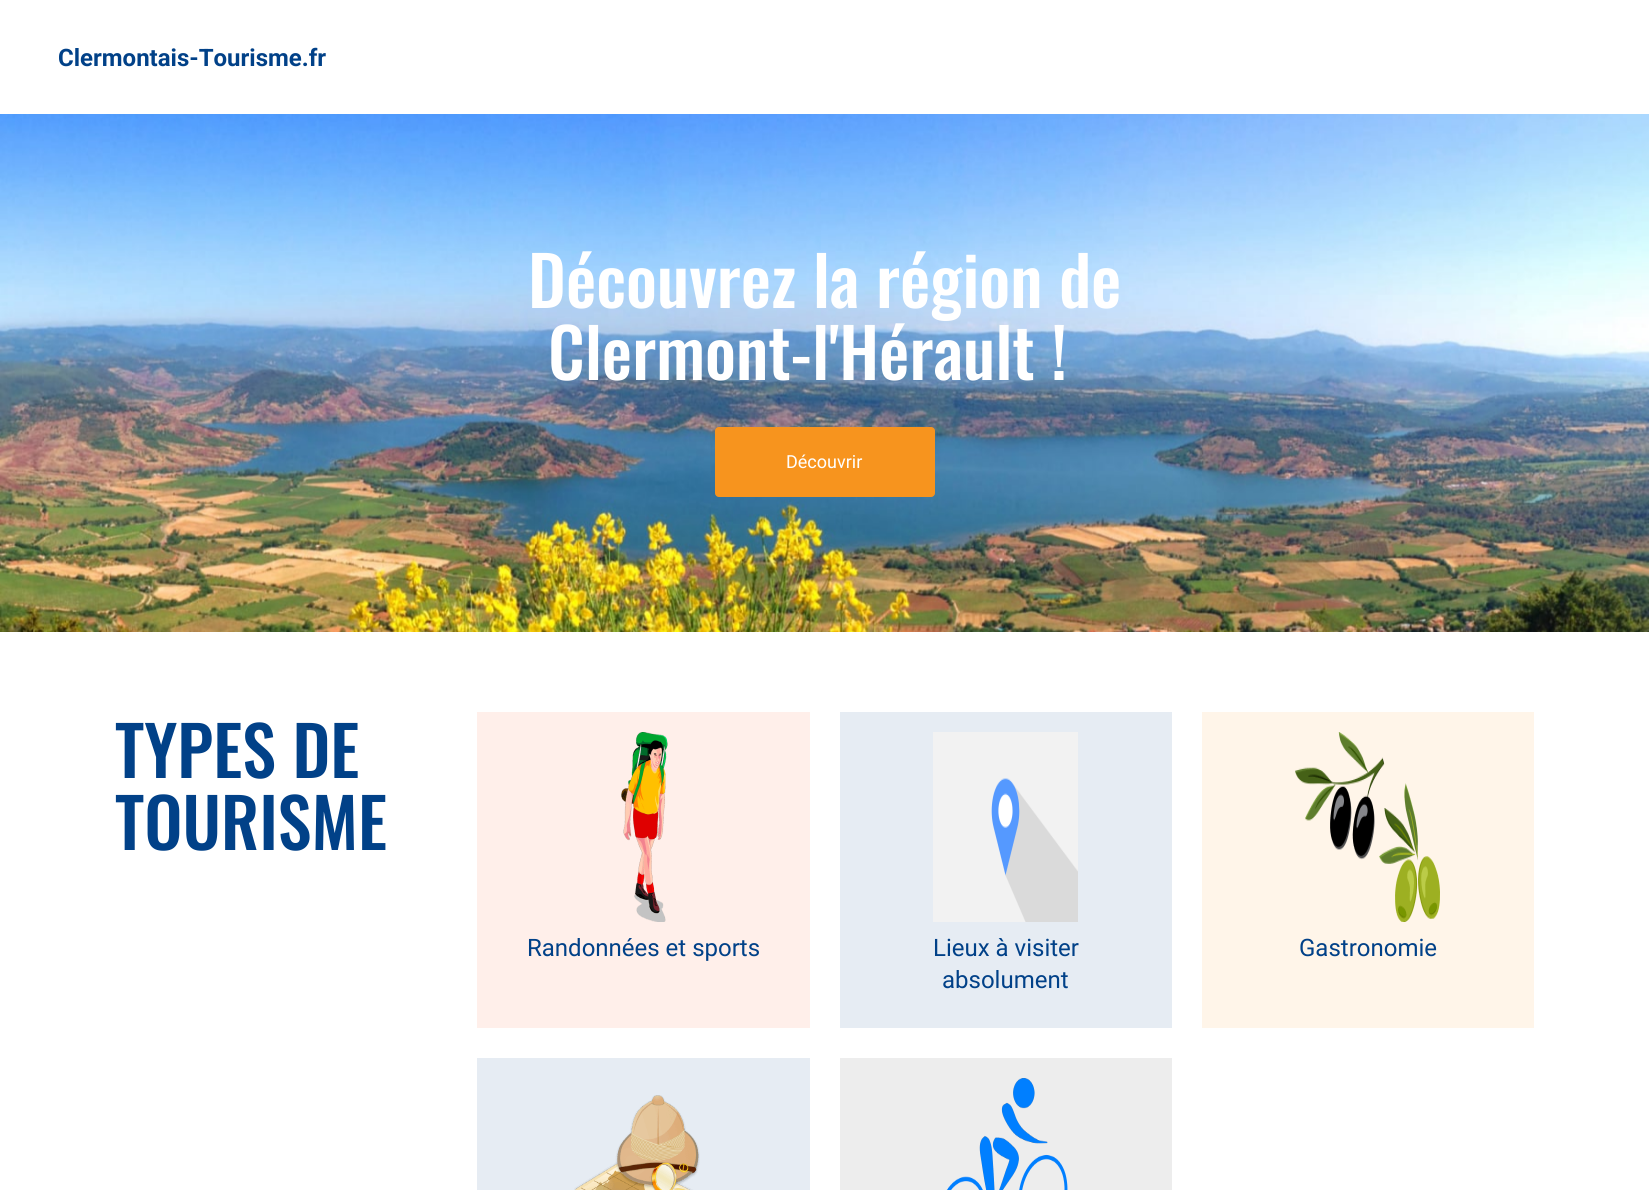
#include <cairo.h>
#include <math.h>
#include <stddef.h>

static cairo_t *ctx;

static void use_color(int r, int g, int b) {
    cairo_set_source_rgb(ctx, r / 255.0, g / 255.0, b / 255.0);
}

static void round_rect(double x, double y, double w, double h, double r) {
    cairo_new_sub_path(ctx);
    cairo_arc(ctx, x + w - r, y + h - r, r, 0, M_PI / 2);
    cairo_arc(ctx, x + r, y + h - r, r, M_PI / 2, M_PI);
    cairo_arc(ctx, x + r, y + r, r, M_PI, 1.5 * M_PI);
    cairo_arc(ctx, x + w - r, y + r, r, 1.5 * M_PI, 2 * M_PI);
    cairo_close_path(ctx);
}

static void picture(const char *path, double x, double y, double w, double h) {
    cairo_surface_t *image = cairo_image_surface_create_from_png(path);
    cairo_save(ctx);
    cairo_set_source_surface(ctx, image, x, y);
    cairo_rectangle(ctx, x, y, w, h);
    cairo_fill(ctx);
    cairo_restore(ctx);
    cairo_surface_destroy(image);
}

int main(void) {
    cairo_surface_t *surface = cairo_image_surface_create(CAIRO_FORMAT_RGB24, 1649, 1190);
    ctx = cairo_create(surface);
    cairo_font_options_t *options = cairo_font_options_create();
    cairo_font_options_set_hint_metrics(options, CAIRO_HINT_METRICS_OFF);
    cairo_font_options_set_hint_style(options, CAIRO_HINT_STYLE_NONE);
    cairo_set_font_options(ctx, options);
    cairo_set_miter_limit(ctx, 4);
    use_color(255, 255, 255);
    cairo_paint(ctx);
    cairo_select_font_face(ctx, "Roboto", CAIRO_FONT_SLANT_NORMAL, CAIRO_FONT_WEIGHT_BOLD);
    cairo_set_font_size(ctx, 24);
    use_color(1, 65, 136);
    cairo_move_to(ctx, 58, 66);
    cairo_show_text(ctx, "Clermontais-Tourisme.fr");
    picture("img1.png", 0, 114, 1649, 518);
    cairo_select_font_face(ctx, "Oswald Medium", CAIRO_FONT_SLANT_NORMAL, CAIRO_FONT_WEIGHT_NORMAL);
    cairo_set_font_size(ctx, 68);
    use_color(255, 255, 255);
    cairo_move_to(ctx, 528, 308);
    cairo_show_text(ctx, "Découvrez la région de");
    cairo_move_to(ctx, 548, 380);
    cairo_show_text(ctx, "Clermont-l'Hérault !");
    use_color(247, 148, 30);
    round_rect(715.5, 427.5, 219, 69, 3.5);
    cairo_fill_preserve(ctx);
    cairo_set_line_width(ctx, 1);
    cairo_stroke(ctx);
    cairo_select_font_face(ctx, "Roboto", CAIRO_FONT_SLANT_NORMAL, CAIRO_FONT_WEIGHT_NORMAL);
    cairo_set_font_size(ctx, 18);
    use_color(255, 255, 255);
    cairo_move_to(ctx, 786, 468);
    cairo_show_text(ctx, "Découvrir");
    cairo_select_font_face(ctx, "Oswald Medium", CAIRO_FONT_SLANT_NORMAL, CAIRO_FONT_WEIGHT_NORMAL);
    cairo_set_font_size(ctx, 68);
    use_color(1, 65, 136);
    cairo_move_to(ctx, 115, 778);
    cairo_show_text(ctx, "TYPES DE");
    cairo_move_to(ctx, 115, 850);
    cairo_show_text(ctx, "TOURISME");
    use_color(255, 239, 234);
    cairo_rectangle(ctx, 477, 712, 333, 316);
    cairo_fill(ctx);
    picture("img2.png", 621, 732, 47, 190);
    cairo_select_font_face(ctx, "Roboto", CAIRO_FONT_SLANT_NORMAL, CAIRO_FONT_WEIGHT_NORMAL);
    cairo_set_font_size(ctx, 24);
    use_color(1, 65, 136);
    cairo_move_to(ctx, 527, 956);
    cairo_show_text(ctx, "Randonnées et sports");
    use_color(230, 236, 243);
    cairo_rectangle(ctx, 840, 712, 332, 316);
    cairo_fill(ctx);
    picture("img3.png", 933, 732, 145, 190);
    use_color(1, 65, 136);
    cairo_move_to(ctx, 933, 956);
    cairo_show_text(ctx, "Lieux à visiter");
    cairo_move_to(ctx, 942, 988);
    cairo_show_text(ctx, "absolument");
    use_color(255, 245, 233);
    cairo_rectangle(ctx, 1202, 712, 332, 316);
    cairo_fill(ctx);
    picture("img4.png", 1295, 732, 145, 190);
    use_color(1, 65, 136);
    cairo_move_to(ctx, 1299, 956);
    cairo_show_text(ctx, "Gastronomie");
    use_color(230, 236, 243);
    cairo_rectangle(ctx, 477, 1058, 333, 132);
    cairo_fill(ctx);
    picture("img5.png", 574, 1095, 126, 95);
    use_color(237, 237, 237);
    cairo_rectangle(ctx, 840, 1058, 332, 132);
    cairo_fill(ctx);
    picture("img6.png", 946, 1078, 122, 112);
    cairo_surface_write_to_png(surface, "result.png");
    cairo_font_options_destroy(options);
    cairo_destroy(ctx);
    cairo_surface_destroy(surface);
    return 0;
}
